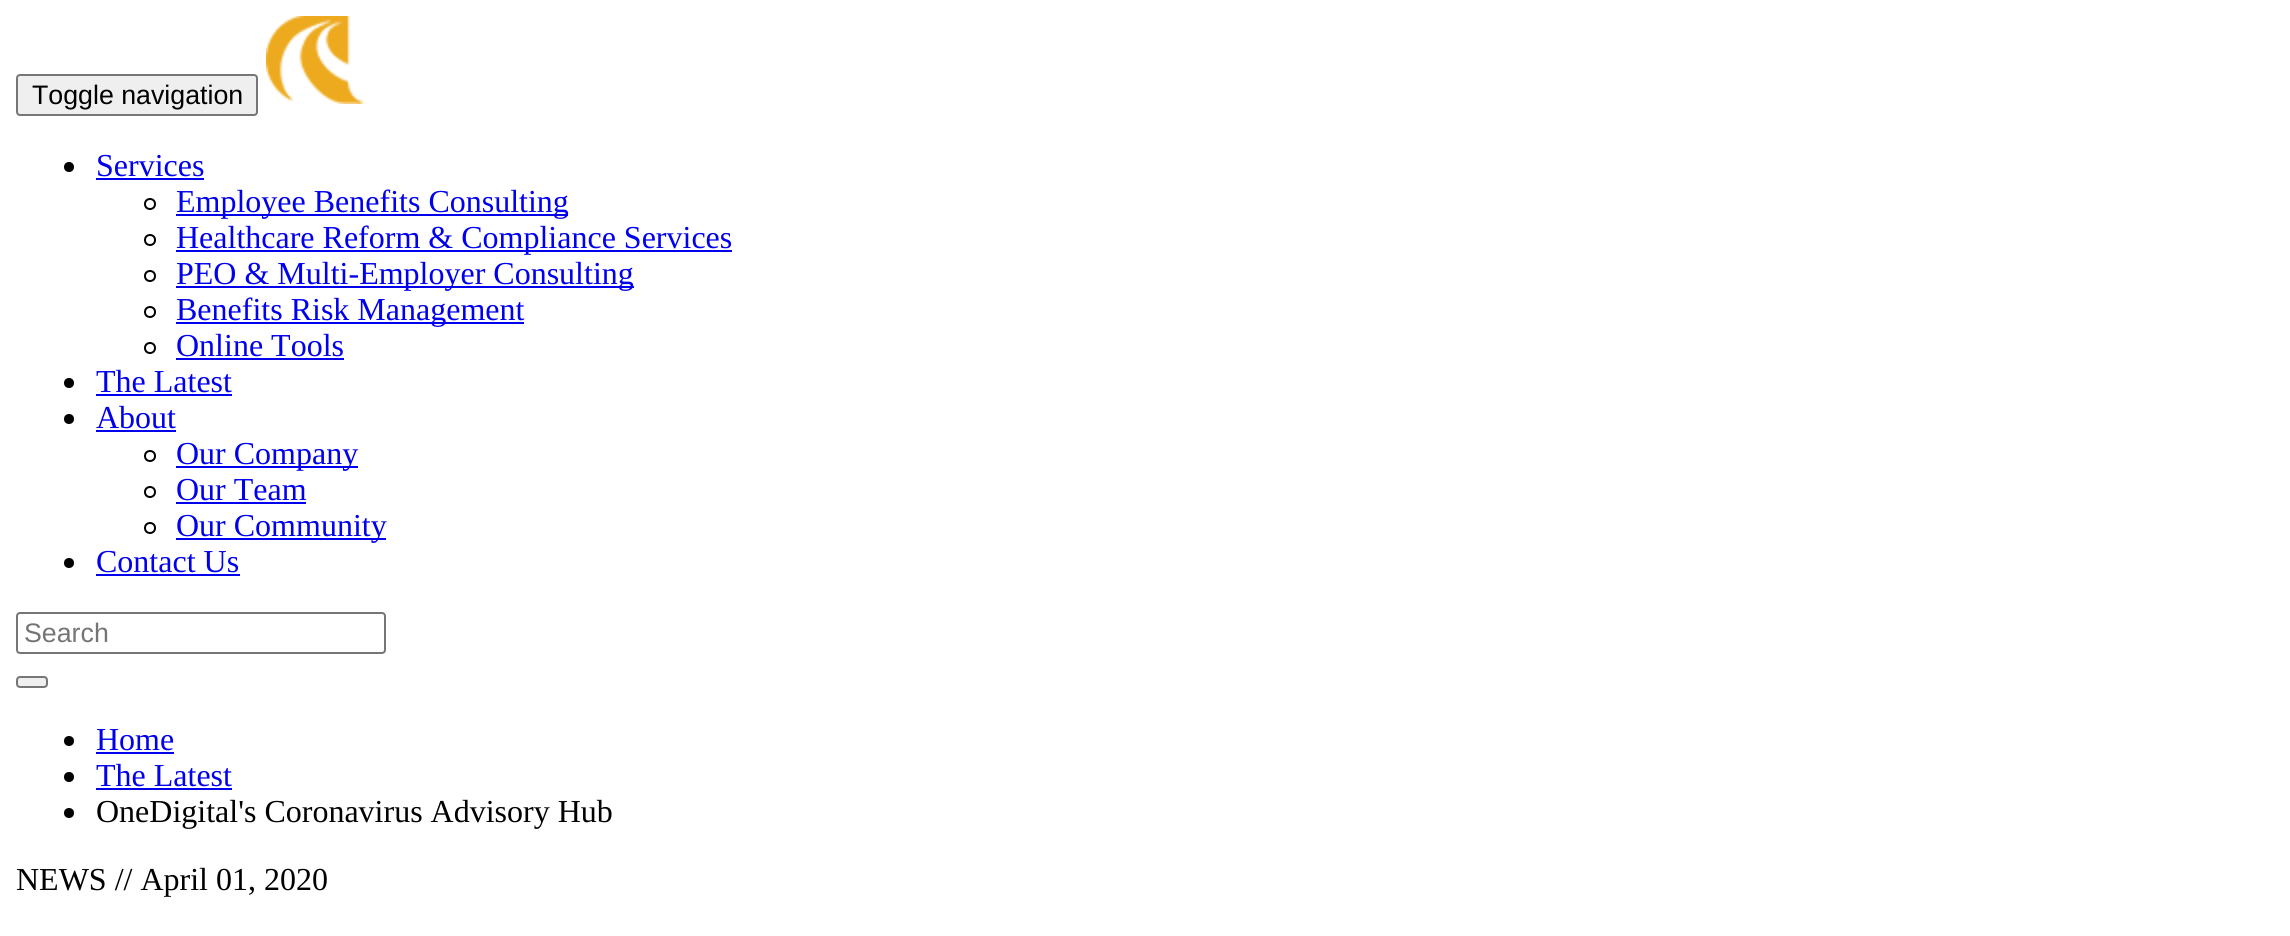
#include <cairo.h>
#include <math.h>
#include <stddef.h>

static cairo_t *ctx;

static void use_color(int r, int g, int b) {
    cairo_set_source_rgb(ctx, r / 255.0, g / 255.0, b / 255.0);
}

static void round_rect(double x, double y, double w, double h, double r) {
    cairo_new_sub_path(ctx);
    cairo_arc(ctx, x + w - r, y + h - r, r, 0, M_PI / 2);
    cairo_arc(ctx, x + r, y + h - r, r, M_PI / 2, M_PI);
    cairo_arc(ctx, x + r, y + r, r, M_PI, 1.5 * M_PI);
    cairo_arc(ctx, x + w - r, y + r, r, 1.5 * M_PI, 2 * M_PI);
    cairo_close_path(ctx);
}

static void picture(const char *path, double x, double y, double w, double h) {
    cairo_surface_t *image = cairo_image_surface_create_from_png(path);
    cairo_save(ctx);
    cairo_set_source_surface(ctx, image, x, y);
    cairo_rectangle(ctx, x, y, w, h);
    cairo_fill(ctx);
    cairo_restore(ctx);
    cairo_surface_destroy(image);
}

int main(void) {
    cairo_surface_t *surface = cairo_image_surface_create(CAIRO_FORMAT_RGB24, 2290, 936);
    ctx = cairo_create(surface);
    cairo_font_options_t *options = cairo_font_options_create();
    cairo_font_options_set_hint_metrics(options, CAIRO_HINT_METRICS_OFF);
    cairo_font_options_set_hint_style(options, CAIRO_HINT_STYLE_NONE);
    cairo_set_font_options(ctx, options);
    cairo_set_miter_limit(ctx, 4);
    use_color(255, 255, 255);
    cairo_paint(ctx);
    use_color(239, 239, 239);
    round_rect(17, 75, 240, 40, 3);
    cairo_fill_preserve(ctx);
    use_color(118, 118, 118);
    cairo_stroke(ctx);
    cairo_select_font_face(ctx, "Liberation Sans", CAIRO_FONT_SLANT_NORMAL, CAIRO_FONT_WEIGHT_NORMAL);
    cairo_set_font_size(ctx, 26.75);
    use_color(0, 0, 0);
    cairo_move_to(ctx, 32, 104);
    cairo_show_text(ctx, "Toggle navigation");
    picture("img1.png", 266, 16, 100, 88);
    cairo_arc(ctx, 69, 167, 5, 0, 2 * M_PI);
    cairo_fill(ctx);
    cairo_select_font_face(ctx, "Liberation Serif", CAIRO_FONT_SLANT_NORMAL, CAIRO_FONT_WEIGHT_NORMAL);
    cairo_set_font_size(ctx, 32);
    use_color(0, 0, 238);
    cairo_move_to(ctx, 96, 176);
    cairo_show_text(ctx, "Services");
    cairo_rectangle(ctx, 96, 178, 108, 2);
    cairo_fill(ctx);
    cairo_arc(ctx, 150, 204, 5, 0, 2 * M_PI);
    use_color(0, 0, 0);
    cairo_stroke(ctx);
    use_color(0, 0, 238);
    cairo_rectangle(ctx, 176, 214, 392, 2);
    cairo_fill(ctx);
    cairo_move_to(ctx, 176, 212);
    cairo_show_text(ctx, "Employee Benefits Consulting");
    cairo_new_path(ctx);
    cairo_arc(ctx, 150, 240, 5, 0, 2 * M_PI);
    use_color(0, 0, 0);
    cairo_stroke(ctx);
    use_color(0, 0, 238);
    cairo_rectangle(ctx, 176, 250, 556, 2);
    cairo_fill(ctx);
    cairo_move_to(ctx, 176, 248);
    cairo_show_text(ctx, "Healthcare Reform & Compliance Services");
    cairo_new_path(ctx);
    cairo_arc(ctx, 150, 276, 5, 0, 2 * M_PI);
    use_color(0, 0, 0);
    cairo_stroke(ctx);
    use_color(0, 0, 238);
    cairo_rectangle(ctx, 176, 286, 458, 2);
    cairo_fill(ctx);
    cairo_move_to(ctx, 176, 284);
    cairo_show_text(ctx, "PEO & Multi-Employer Consulting");
    cairo_new_path(ctx);
    cairo_arc(ctx, 150, 312, 5, 0, 2 * M_PI);
    use_color(0, 0, 0);
    cairo_stroke(ctx);
    use_color(0, 0, 238);
    cairo_rectangle(ctx, 176, 322, 348, 2);
    cairo_fill(ctx);
    cairo_move_to(ctx, 176, 320);
    cairo_show_text(ctx, "Benefits Risk Management");
    cairo_new_path(ctx);
    cairo_arc(ctx, 150, 348, 5, 0, 2 * M_PI);
    use_color(0, 0, 0);
    cairo_stroke(ctx);
    use_color(0, 0, 238);
    cairo_move_to(ctx, 176, 356);
    cairo_show_text(ctx, "Online Tools");
    cairo_rectangle(ctx, 176, 358, 168, 2);
    cairo_fill(ctx);
    use_color(0, 0, 0);
    cairo_arc(ctx, 69, 383, 5, 0, 2 * M_PI);
    cairo_fill(ctx);
    use_color(0, 0, 238);
    cairo_move_to(ctx, 96, 392);
    cairo_show_text(ctx, "The Latest");
    cairo_rectangle(ctx, 96, 394, 136, 2);
    cairo_fill(ctx);
    use_color(0, 0, 0);
    cairo_arc(ctx, 69, 419, 5, 0, 2 * M_PI);
    cairo_fill(ctx);
    use_color(0, 0, 238);
    cairo_move_to(ctx, 96, 428);
    cairo_show_text(ctx, "About");
    cairo_rectangle(ctx, 96, 430, 80, 2);
    cairo_fill(ctx);
    cairo_arc(ctx, 150, 456, 5, 0, 2 * M_PI);
    use_color(0, 0, 0);
    cairo_stroke(ctx);
    use_color(0, 0, 238);
    cairo_rectangle(ctx, 176, 466, 182, 2);
    cairo_fill(ctx);
    cairo_move_to(ctx, 176, 464);
    cairo_show_text(ctx, "Our Company");
    cairo_new_path(ctx);
    cairo_arc(ctx, 150, 492, 5, 0, 2 * M_PI);
    use_color(0, 0, 0);
    cairo_stroke(ctx);
    use_color(0, 0, 238);
    cairo_move_to(ctx, 176, 500);
    cairo_show_text(ctx, "Our Team");
    cairo_rectangle(ctx, 176, 502, 130, 2);
    cairo_fill(ctx);
    cairo_arc(ctx, 150, 528, 5, 0, 2 * M_PI);
    use_color(0, 0, 0);
    cairo_stroke(ctx);
    use_color(0, 0, 238);
    cairo_rectangle(ctx, 176, 538, 210, 2);
    cairo_fill(ctx);
    cairo_move_to(ctx, 176, 536);
    cairo_show_text(ctx, "Our Community");
    use_color(0, 0, 0);
    cairo_new_path(ctx);
    cairo_arc(ctx, 69, 563, 5, 0, 2 * M_PI);
    cairo_fill(ctx);
    use_color(0, 0, 238);
    cairo_move_to(ctx, 96, 572);
    cairo_show_text(ctx, "Contact Us");
    cairo_rectangle(ctx, 96, 574, 144, 2);
    cairo_fill(ctx);
    round_rect(17, 613, 368, 40, 3);
    use_color(118, 118, 118);
    cairo_stroke(ctx);
    cairo_select_font_face(ctx, "Liberation Sans", CAIRO_FONT_SLANT_NORMAL, CAIRO_FONT_WEIGHT_NORMAL);
    cairo_set_font_size(ctx, 26.75);
    use_color(117, 117, 117);
    cairo_move_to(ctx, 24, 642);
    cairo_show_text(ctx, "Search");
    use_color(239, 239, 239);
    round_rect(17, 677, 30, 10, 3);
    cairo_fill_preserve(ctx);
    use_color(118, 118, 118);
    cairo_stroke(ctx);
    use_color(0, 0, 0);
    cairo_arc(ctx, 69, 741, 5, 0, 2 * M_PI);
    cairo_fill(ctx);
    cairo_select_font_face(ctx, "Liberation Serif", CAIRO_FONT_SLANT_NORMAL, CAIRO_FONT_WEIGHT_NORMAL);
    cairo_set_font_size(ctx, 32);
    use_color(0, 0, 238);
    cairo_move_to(ctx, 96, 750);
    cairo_show_text(ctx, "Home");
    cairo_rectangle(ctx, 96, 752, 78, 2);
    cairo_fill(ctx);
    use_color(0, 0, 0);
    cairo_arc(ctx, 69, 777, 5, 0, 2 * M_PI);
    cairo_fill(ctx);
    use_color(0, 0, 238);
    cairo_move_to(ctx, 96, 786);
    cairo_show_text(ctx, "The Latest");
    cairo_rectangle(ctx, 96, 788, 136, 2);
    cairo_fill(ctx);
    use_color(0, 0, 0);
    cairo_arc(ctx, 69, 813, 5, 0, 2 * M_PI);
    cairo_fill(ctx);
    cairo_move_to(ctx, 96, 822);
    cairo_show_text(ctx, "OneDigital's Coronavirus Advisory Hub");
    cairo_move_to(ctx, 16, 890);
    cairo_show_text(ctx, "NEWS // April 01, 2020");
    cairo_surface_write_to_png(surface, "result.png");
    cairo_font_options_destroy(options);
    cairo_destroy(ctx);
    cairo_surface_destroy(surface);
    return 0;
}
